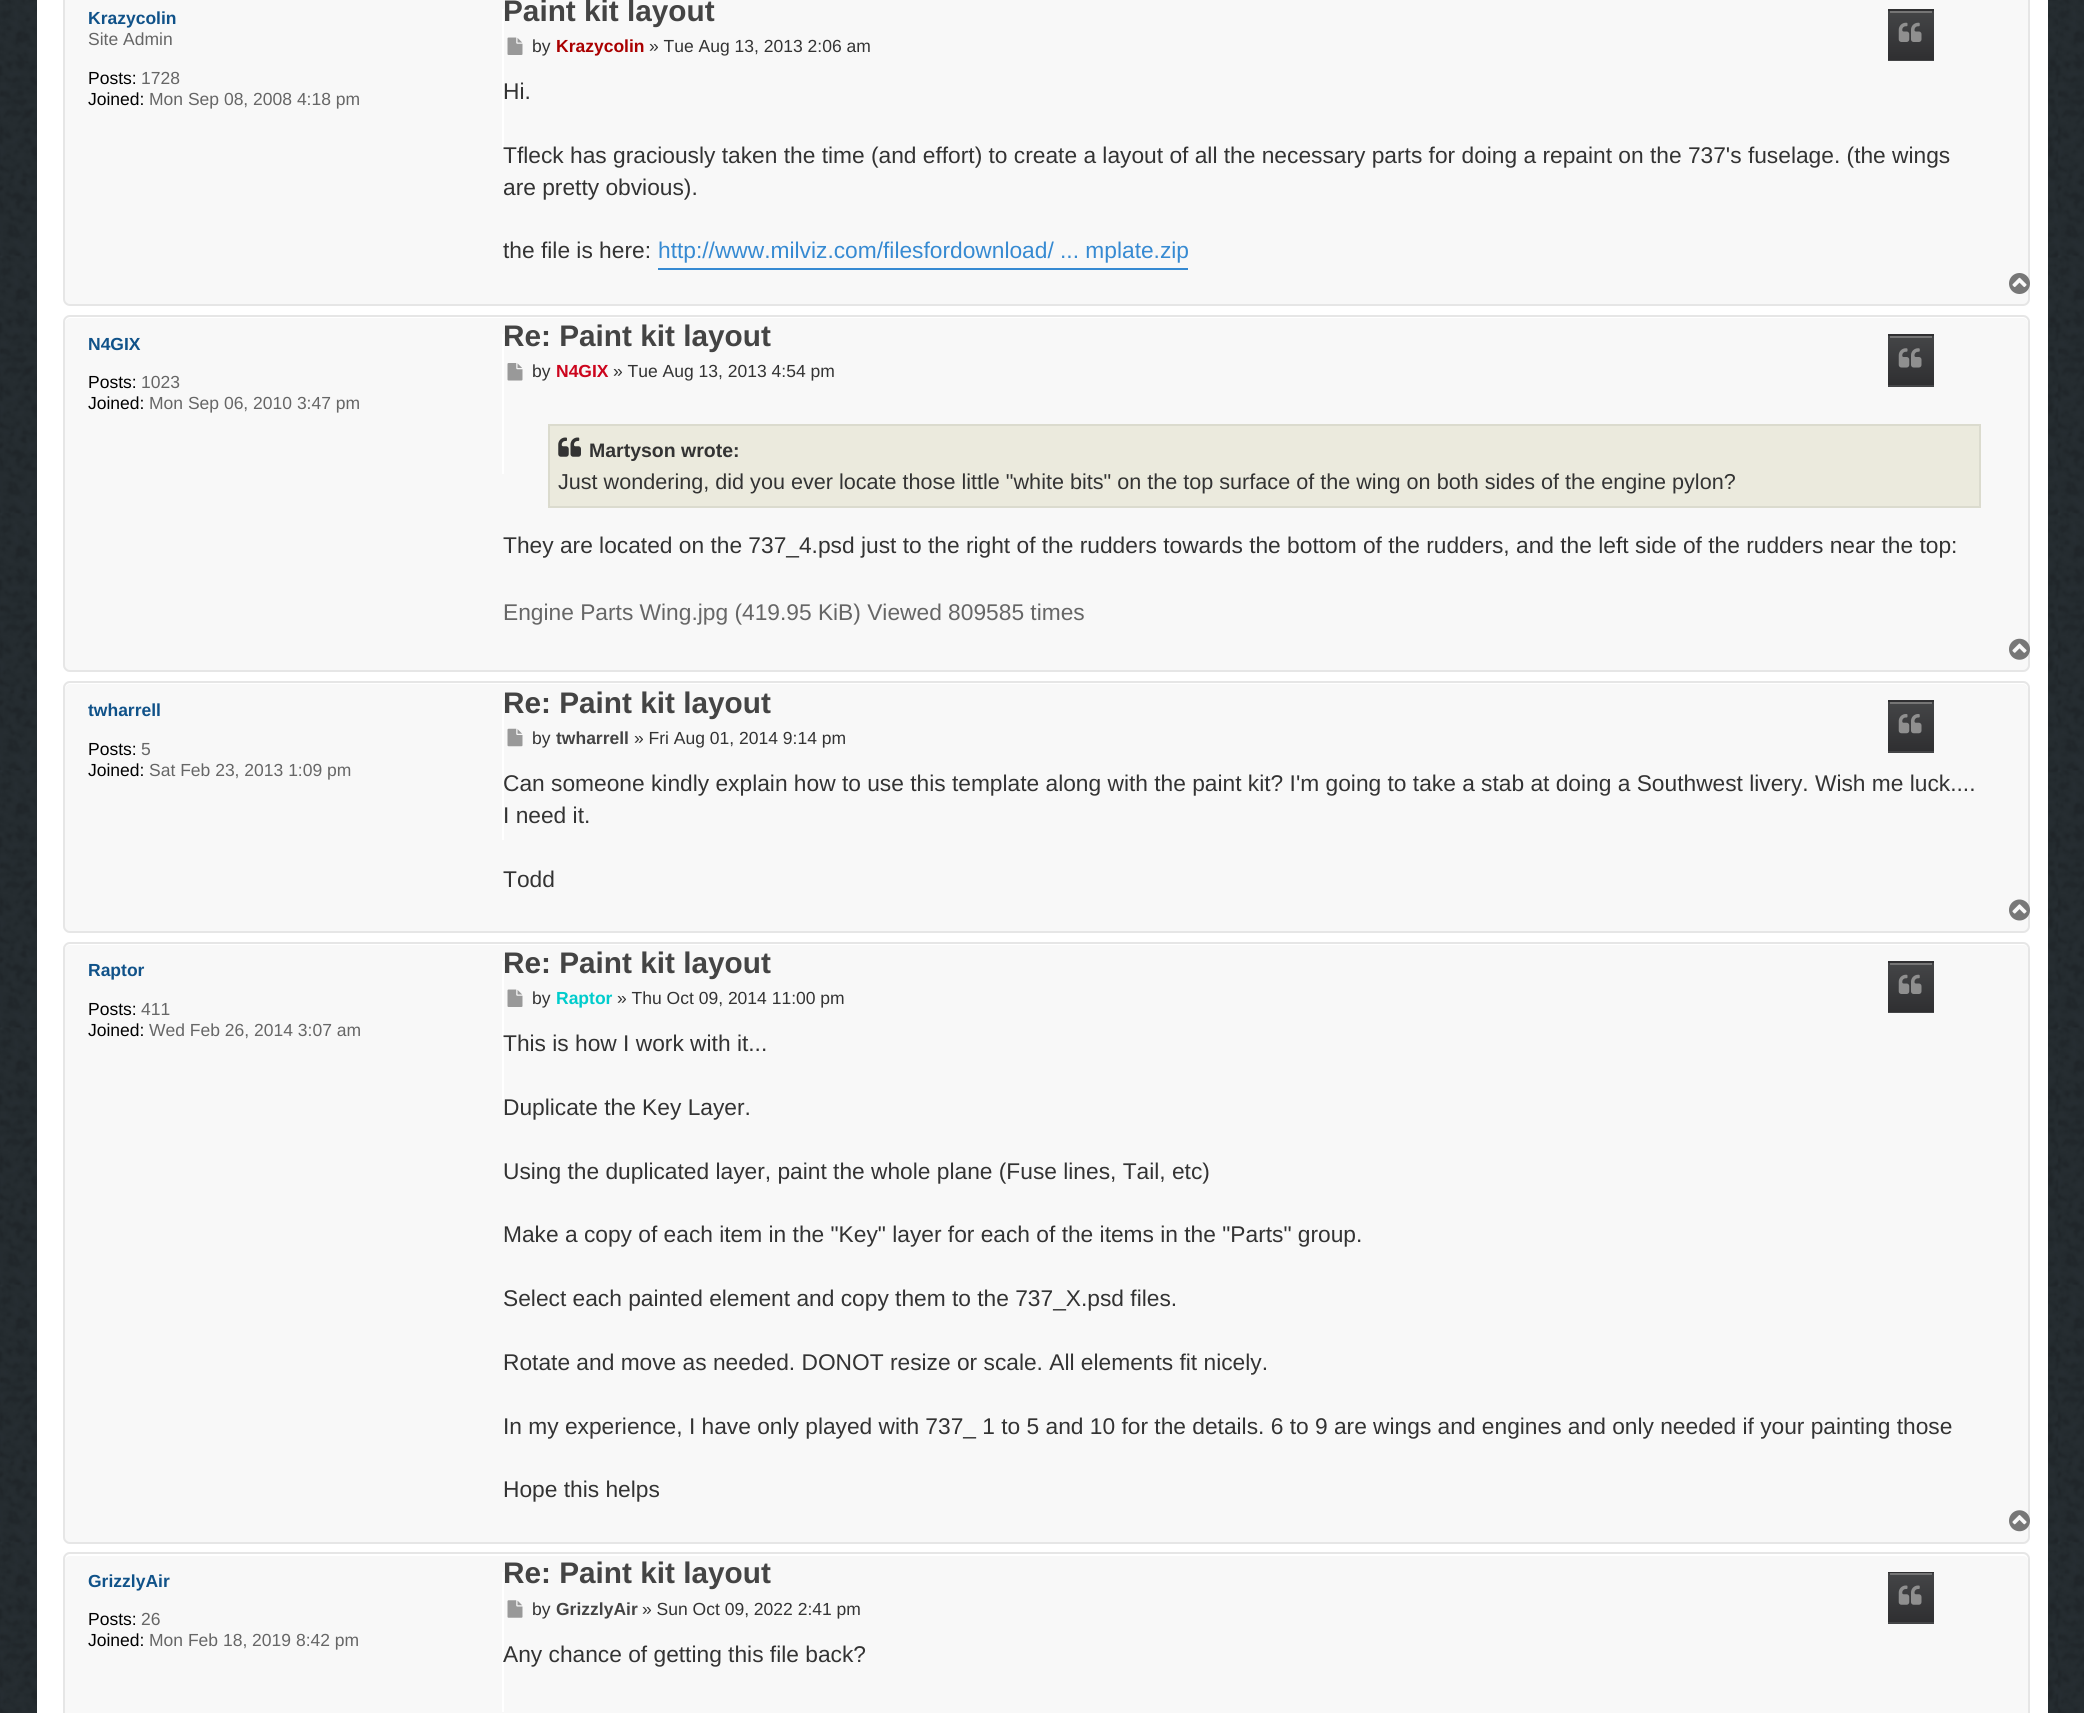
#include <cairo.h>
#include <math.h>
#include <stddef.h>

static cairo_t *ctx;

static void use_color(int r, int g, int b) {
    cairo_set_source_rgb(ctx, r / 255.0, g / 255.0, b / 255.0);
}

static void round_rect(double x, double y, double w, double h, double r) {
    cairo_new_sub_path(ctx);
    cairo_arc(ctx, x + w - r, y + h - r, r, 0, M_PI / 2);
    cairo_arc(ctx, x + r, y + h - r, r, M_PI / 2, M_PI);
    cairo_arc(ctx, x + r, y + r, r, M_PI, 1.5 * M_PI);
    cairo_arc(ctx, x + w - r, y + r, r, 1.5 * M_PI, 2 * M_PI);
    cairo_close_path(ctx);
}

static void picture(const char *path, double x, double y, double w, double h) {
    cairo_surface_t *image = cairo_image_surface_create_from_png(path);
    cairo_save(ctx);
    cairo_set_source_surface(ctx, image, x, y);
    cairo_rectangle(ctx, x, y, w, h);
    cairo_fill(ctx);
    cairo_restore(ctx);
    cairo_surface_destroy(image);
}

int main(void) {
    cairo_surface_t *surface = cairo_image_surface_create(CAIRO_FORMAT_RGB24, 2084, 1713);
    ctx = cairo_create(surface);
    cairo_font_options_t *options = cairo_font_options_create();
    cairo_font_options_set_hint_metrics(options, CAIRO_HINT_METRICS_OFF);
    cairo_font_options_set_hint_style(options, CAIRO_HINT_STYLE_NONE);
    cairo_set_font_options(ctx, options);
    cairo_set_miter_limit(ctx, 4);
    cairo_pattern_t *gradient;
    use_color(255, 255, 255);
    cairo_paint(ctx);
    picture("img1.png", 0, 0, 2084, 1713);
    use_color(255, 255, 255);
    cairo_rectangle(ctx, 37, 0, 2011, 1713);
    cairo_fill(ctx);
    use_color(248, 248, 248);
    round_rect(64, -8, 1965, 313, 6);
    cairo_fill_preserve(ctx);
    use_color(230, 230, 230);
    cairo_stroke(ctx);
    use_color(255, 255, 255);
    cairo_rectangle(ctx, 502, 9, 2, 140);
    cairo_fill(ctx);
    cairo_select_font_face(ctx, "Liberation Sans", CAIRO_FONT_SLANT_NORMAL, CAIRO_FONT_WEIGHT_BOLD);
    cairo_set_font_size(ctx, 17.5);
    use_color(16, 82, 137);
    cairo_move_to(ctx, 88, 24);
    cairo_show_text(ctx, "Krazycolin");
    cairo_select_font_face(ctx, "Liberation Sans", CAIRO_FONT_SLANT_NORMAL, CAIRO_FONT_WEIGHT_NORMAL);
    use_color(102, 102, 102);
    cairo_move_to(ctx, 88, 45);
    cairo_show_text(ctx, "Site Admin");
    use_color(0, 0, 0);
    cairo_move_to(ctx, 88, 84);
    cairo_show_text(ctx, "Posts:");
    use_color(102, 102, 102);
    cairo_move_to(ctx, 141, 84);
    cairo_show_text(ctx, "1728");
    use_color(0, 0, 0);
    cairo_move_to(ctx, 88, 105);
    cairo_show_text(ctx, "Joined:");
    use_color(102, 102, 102);
    cairo_move_to(ctx, 149, 105);
    cairo_show_text(ctx, "Mon Sep 08, 2008 4:18 pm");
    cairo_select_font_face(ctx, "Liberation Sans", CAIRO_FONT_SLANT_NORMAL, CAIRO_FONT_WEIGHT_BOLD);
    cairo_set_font_size(ctx, 29.75);
    use_color(68, 68, 68);
    cairo_move_to(ctx, 503, 21);
    cairo_show_text(ctx, "Paint kit layout");
    gradient = cairo_pattern_create_linear(1911, -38, 1911, 11);
    cairo_pattern_add_color_stop_rgba(gradient, 0, 0.267, 0.271, 0.278, 1);
    cairo_pattern_add_color_stop_rgba(gradient, 1, 0.184, 0.184, 0.192, 1);
    cairo_set_source(ctx, gradient);
    cairo_pattern_destroy(gradient);
    cairo_rectangle(ctx, 1888, 9, 46, 2);
    cairo_fill(ctx);
    gradient = cairo_pattern_create_linear(1911, 10, 1911, 60);
    cairo_pattern_add_color_stop_rgba(gradient, 0, 0.267, 0.271, 0.278, 1);
    cairo_pattern_add_color_stop_rgba(gradient, 1, 0.184, 0.184, 0.192, 1);
    cairo_set_source(ctx, gradient);
    cairo_pattern_destroy(gradient);
    cairo_rectangle(ctx, 1888, 11, 46, 49);
    cairo_fill(ctx);
    gradient = cairo_pattern_create_linear(1911, 60, 1911, 109);
    cairo_pattern_add_color_stop_rgba(gradient, 0, 0.267, 0.271, 0.278, 1);
    cairo_pattern_add_color_stop_rgba(gradient, 1, 0.184, 0.184, 0.192, 1);
    cairo_set_source(ctx, gradient);
    cairo_pattern_destroy(gradient);
    cairo_rectangle(ctx, 1888, 60, 46, 1);
    cairo_fill(ctx);
    use_color(117, 117, 117);
    cairo_rectangle(ctx, 1890, 11, 42, 2);
    cairo_fill(ctx);
    picture("img2.png", 1898, 22, 24, 20);
    picture("img3.png", 507, 37, 16, 18);
    cairo_select_font_face(ctx, "Liberation Sans", CAIRO_FONT_SLANT_NORMAL, CAIRO_FONT_WEIGHT_NORMAL);
    cairo_set_font_size(ctx, 17.5);
    use_color(51, 51, 51);
    cairo_move_to(ctx, 532, 52);
    cairo_show_text(ctx, "by");
    cairo_select_font_face(ctx, "Liberation Sans", CAIRO_FONT_SLANT_NORMAL, CAIRO_FONT_WEIGHT_BOLD);
    use_color(170, 0, 0);
    cairo_move_to(ctx, 556, 52);
    cairo_show_text(ctx, "Krazycolin");
    cairo_select_font_face(ctx, "Liberation Sans", CAIRO_FONT_SLANT_NORMAL, CAIRO_FONT_WEIGHT_NORMAL);
    use_color(51, 51, 51);
    cairo_move_to(ctx, 649, 52);
    cairo_show_text(ctx, "» Tue Aug 13, 2013 2:06 am");
    cairo_set_font_size(ctx, 22.75);
    cairo_move_to(ctx, 503, 99);
    cairo_show_text(ctx, "Hi.");
    cairo_move_to(ctx, 503, 163);
    cairo_show_text(ctx, "Tfleck has graciously taken the time (and effort) to create a layout of all the necessary parts for doing a repaint on the 737's fuselage. (the wings");
    cairo_move_to(ctx, 503, 195);
    cairo_show_text(ctx, "are pretty obvious).");
    cairo_move_to(ctx, 503, 258);
    cairo_show_text(ctx, "the file is here:");
    use_color(54, 138, 210);
    cairo_rectangle(ctx, 658, 268, 530, 2);
    cairo_fill(ctx);
    cairo_move_to(ctx, 658, 258);
    cairo_show_text(ctx, "http://www.milviz.com/filesfordownload/ ... mplate.zip");
    picture("img4.png", 2009, 273, 21, 21);
    use_color(248, 248, 248);
    round_rect(63, 315, 1967, 357, 7);
    cairo_fill(ctx);
    use_color(255, 255, 255);
    cairo_new_path(ctx);
    cairo_move_to(ctx, 70, 318);
    cairo_line_to(ctx, 2023, 318);
    cairo_curve_to(ctx, 2026, 318, 2028, 321, 2028, 324);
    cairo_line_to(ctx, 2028, 322);
    cairo_curve_to(ctx, 2028, 319, 2026, 317, 2023, 317);
    cairo_line_to(ctx, 70, 317);
    cairo_curve_to(ctx, 67, 317, 65, 319, 65, 322);
    cairo_line_to(ctx, 65, 324);
    cairo_curve_to(ctx, 65, 321, 67, 318, 70, 318);
    cairo_close_path(ctx);
    cairo_fill(ctx);
    round_rect(64, 316, 1965, 355, 6);
    use_color(230, 230, 230);
    cairo_stroke(ctx);
    use_color(255, 255, 255);
    cairo_rectangle(ctx, 502, 334, 2, 140);
    cairo_fill(ctx);
    cairo_select_font_face(ctx, "Liberation Sans", CAIRO_FONT_SLANT_NORMAL, CAIRO_FONT_WEIGHT_BOLD);
    cairo_set_font_size(ctx, 17.5);
    use_color(16, 82, 137);
    cairo_move_to(ctx, 88, 350);
    cairo_show_text(ctx, "N4GIX");
    cairo_select_font_face(ctx, "Liberation Sans", CAIRO_FONT_SLANT_NORMAL, CAIRO_FONT_WEIGHT_NORMAL);
    use_color(0, 0, 0);
    cairo_move_to(ctx, 88, 388);
    cairo_show_text(ctx, "Posts:");
    use_color(102, 102, 102);
    cairo_move_to(ctx, 141, 388);
    cairo_show_text(ctx, "1023");
    use_color(0, 0, 0);
    cairo_move_to(ctx, 88, 409);
    cairo_show_text(ctx, "Joined:");
    use_color(102, 102, 102);
    cairo_move_to(ctx, 149, 409);
    cairo_show_text(ctx, "Mon Sep 06, 2010 3:47 pm");
    cairo_select_font_face(ctx, "Liberation Sans", CAIRO_FONT_SLANT_NORMAL, CAIRO_FONT_WEIGHT_BOLD);
    cairo_set_font_size(ctx, 29.75);
    use_color(68, 68, 68);
    cairo_move_to(ctx, 503, 346);
    cairo_show_text(ctx, "Re: Paint kit layout");
    gradient = cairo_pattern_create_linear(1911, 287, 1911, 336);
    cairo_pattern_add_color_stop_rgba(gradient, 0, 0.267, 0.271, 0.278, 1);
    cairo_pattern_add_color_stop_rgba(gradient, 1, 0.184, 0.184, 0.192, 1);
    cairo_set_source(ctx, gradient);
    cairo_pattern_destroy(gradient);
    cairo_rectangle(ctx, 1888, 334, 46, 2);
    cairo_fill(ctx);
    gradient = cairo_pattern_create_linear(1911, 336, 1911, 385);
    cairo_pattern_add_color_stop_rgba(gradient, 0, 0.267, 0.271, 0.278, 1);
    cairo_pattern_add_color_stop_rgba(gradient, 1, 0.184, 0.184, 0.192, 1);
    cairo_set_source(ctx, gradient);
    cairo_pattern_destroy(gradient);
    cairo_rectangle(ctx, 1888, 336, 46, 49);
    cairo_fill(ctx);
    gradient = cairo_pattern_create_linear(1911, 385, 1911, 434);
    cairo_pattern_add_color_stop_rgba(gradient, 0, 0.267, 0.271, 0.278, 1);
    cairo_pattern_add_color_stop_rgba(gradient, 1, 0.184, 0.184, 0.192, 1);
    cairo_set_source(ctx, gradient);
    cairo_pattern_destroy(gradient);
    cairo_rectangle(ctx, 1888, 385, 46, 2);
    cairo_fill(ctx);
    use_color(117, 117, 117);
    cairo_rectangle(ctx, 1890, 336, 42, 2);
    cairo_fill(ctx);
    picture("img5.png", 1898, 348, 24, 20);
    picture("img6.png", 507, 363, 16, 18);
    cairo_select_font_face(ctx, "Liberation Sans", CAIRO_FONT_SLANT_NORMAL, CAIRO_FONT_WEIGHT_NORMAL);
    cairo_set_font_size(ctx, 17.5);
    use_color(51, 51, 51);
    cairo_move_to(ctx, 532, 377);
    cairo_show_text(ctx, "by");
    cairo_select_font_face(ctx, "Liberation Sans", CAIRO_FONT_SLANT_NORMAL, CAIRO_FONT_WEIGHT_BOLD);
    use_color(204, 5, 29);
    cairo_move_to(ctx, 556, 377);
    cairo_show_text(ctx, "N4GIX");
    cairo_select_font_face(ctx, "Liberation Sans", CAIRO_FONT_SLANT_NORMAL, CAIRO_FONT_WEIGHT_NORMAL);
    use_color(51, 51, 51);
    cairo_move_to(ctx, 613, 377);
    cairo_show_text(ctx, "» Tue Aug 13, 2013 4:54 pm");
    use_color(235, 234, 221);
    cairo_rectangle(ctx, 549, 425, 1431, 82);
    cairo_fill_preserve(ctx);
    use_color(219, 219, 206);
    cairo_stroke(ctx);
    picture("img7.png", 558, 437, 23, 20);
    cairo_select_font_face(ctx, "Liberation Sans", CAIRO_FONT_SLANT_NORMAL, CAIRO_FONT_WEIGHT_BOLD);
    cairo_set_font_size(ctx, 19.5);
    use_color(51, 51, 51);
    cairo_move_to(ctx, 589, 457);
    cairo_show_text(ctx, "Martyson wrote:");
    cairo_select_font_face(ctx, "Liberation Sans", CAIRO_FONT_SLANT_NORMAL, CAIRO_FONT_WEIGHT_NORMAL);
    cairo_set_font_size(ctx, 21.6);
    cairo_move_to(ctx, 558, 489);
    cairo_show_text(ctx, "Just wondering, did you ever locate those little \"white bits\" on the top surface of the wing on both sides of the engine pylon?");
    cairo_set_font_size(ctx, 22.75);
    cairo_move_to(ctx, 503, 553);
    cairo_show_text(ctx, "They are located on the 737_4.psd just to the right of the rudders towards the bottom of the rudders, and the left side of the rudders near the top:");
    use_color(102, 102, 102);
    cairo_move_to(ctx, 503, 620);
    cairo_show_text(ctx, "Engine Parts Wing.jpg (419.95 KiB) Viewed 809585 times");
    picture("img8.png", 2009, 638, 21, 22);
    use_color(248, 248, 248);
    round_rect(63, 681, 1967, 252, 7);
    cairo_fill(ctx);
    use_color(255, 255, 255);
    cairo_new_path(ctx);
    cairo_move_to(ctx, 70, 684);
    cairo_line_to(ctx, 2023, 684);
    cairo_curve_to(ctx, 2026, 684, 2028, 687, 2028, 690);
    cairo_line_to(ctx, 2028, 688);
    cairo_curve_to(ctx, 2028, 685, 2026, 683, 2023, 683);
    cairo_line_to(ctx, 70, 683);
    cairo_curve_to(ctx, 67, 683, 65, 685, 65, 688);
    cairo_line_to(ctx, 65, 690);
    cairo_curve_to(ctx, 65, 687, 67, 684, 70, 684);
    cairo_close_path(ctx);
    cairo_fill(ctx);
    round_rect(64, 682, 1965, 250, 6);
    use_color(230, 230, 230);
    cairo_stroke(ctx);
    use_color(255, 255, 255);
    cairo_rectangle(ctx, 502, 700, 2, 140);
    cairo_fill(ctx);
    cairo_select_font_face(ctx, "Liberation Sans", CAIRO_FONT_SLANT_NORMAL, CAIRO_FONT_WEIGHT_BOLD);
    cairo_set_font_size(ctx, 17.5);
    use_color(16, 82, 137);
    cairo_move_to(ctx, 88, 716);
    cairo_show_text(ctx, "twharrell");
    cairo_select_font_face(ctx, "Liberation Sans", CAIRO_FONT_SLANT_NORMAL, CAIRO_FONT_WEIGHT_NORMAL);
    use_color(0, 0, 0);
    cairo_move_to(ctx, 88, 755);
    cairo_show_text(ctx, "Posts:");
    use_color(102, 102, 102);
    cairo_move_to(ctx, 141, 755);
    cairo_show_text(ctx, "5");
    use_color(0, 0, 0);
    cairo_move_to(ctx, 88, 776);
    cairo_show_text(ctx, "Joined:");
    use_color(102, 102, 102);
    cairo_move_to(ctx, 149, 776);
    cairo_show_text(ctx, "Sat Feb 23, 2013 1:09 pm");
    cairo_select_font_face(ctx, "Liberation Sans", CAIRO_FONT_SLANT_NORMAL, CAIRO_FONT_WEIGHT_BOLD);
    cairo_set_font_size(ctx, 29.75);
    use_color(68, 68, 68);
    cairo_move_to(ctx, 503, 713);
    cairo_show_text(ctx, "Re: Paint kit layout");
    gradient = cairo_pattern_create_linear(1911, 653, 1911, 702);
    cairo_pattern_add_color_stop_rgba(gradient, 0, 0.267, 0.271, 0.278, 1);
    cairo_pattern_add_color_stop_rgba(gradient, 1, 0.184, 0.184, 0.192, 1);
    cairo_set_source(ctx, gradient);
    cairo_pattern_destroy(gradient);
    cairo_rectangle(ctx, 1888, 700, 46, 2);
    cairo_fill(ctx);
    gradient = cairo_pattern_create_linear(1911, 702, 1911, 751);
    cairo_pattern_add_color_stop_rgba(gradient, 0, 0.267, 0.271, 0.278, 1);
    cairo_pattern_add_color_stop_rgba(gradient, 1, 0.184, 0.184, 0.192, 1);
    cairo_set_source(ctx, gradient);
    cairo_pattern_destroy(gradient);
    cairo_rectangle(ctx, 1888, 702, 46, 49);
    cairo_fill(ctx);
    gradient = cairo_pattern_create_linear(1911, 751, 1911, 800);
    cairo_pattern_add_color_stop_rgba(gradient, 0, 0.267, 0.271, 0.278, 1);
    cairo_pattern_add_color_stop_rgba(gradient, 1, 0.184, 0.184, 0.192, 1);
    cairo_set_source(ctx, gradient);
    cairo_pattern_destroy(gradient);
    cairo_rectangle(ctx, 1888, 751, 46, 2);
    cairo_fill(ctx);
    use_color(117, 117, 117);
    cairo_rectangle(ctx, 1890, 702, 42, 2);
    cairo_fill(ctx);
    picture("img9.png", 1898, 714, 24, 20);
    picture("img10.png", 507, 728, 16, 19);
    cairo_select_font_face(ctx, "Liberation Sans", CAIRO_FONT_SLANT_NORMAL, CAIRO_FONT_WEIGHT_NORMAL);
    cairo_set_font_size(ctx, 17.5);
    use_color(51, 51, 51);
    cairo_move_to(ctx, 532, 744);
    cairo_show_text(ctx, "by");
    cairo_select_font_face(ctx, "Liberation Sans", CAIRO_FONT_SLANT_NORMAL, CAIRO_FONT_WEIGHT_BOLD);
    use_color(68, 68, 68);
    cairo_move_to(ctx, 556, 744);
    cairo_show_text(ctx, "twharrell");
    cairo_select_font_face(ctx, "Liberation Sans", CAIRO_FONT_SLANT_NORMAL, CAIRO_FONT_WEIGHT_NORMAL);
    use_color(51, 51, 51);
    cairo_move_to(ctx, 634, 744);
    cairo_show_text(ctx, "» Fri Aug 01, 2014 9:14 pm");
    cairo_set_font_size(ctx, 22.75);
    cairo_move_to(ctx, 503, 791);
    cairo_show_text(ctx, "Can someone kindly explain how to use this template along with the paint kit? I'm going to take a stab at doing a Southwest livery. Wish me luck....");
    cairo_move_to(ctx, 503, 823);
    cairo_show_text(ctx, "I need it.");
    cairo_move_to(ctx, 503, 887);
    cairo_show_text(ctx, "Todd");
    picture("img11.png", 2009, 899, 21, 22);
    use_color(248, 248, 248);
    round_rect(63, 942, 1967, 602, 7);
    cairo_fill(ctx);
    use_color(255, 255, 255);
    cairo_new_path(ctx);
    cairo_move_to(ctx, 70, 945);
    cairo_line_to(ctx, 2023, 945);
    cairo_curve_to(ctx, 2026, 945, 2028, 947, 2028, 950);
    cairo_line_to(ctx, 2028, 948);
    cairo_curve_to(ctx, 2028, 945, 2026, 943, 2023, 943);
    cairo_line_to(ctx, 70, 943);
    cairo_curve_to(ctx, 67, 943, 65, 945, 65, 948);
    cairo_line_to(ctx, 65, 950);
    cairo_curve_to(ctx, 65, 947, 67, 945, 70, 945);
    cairo_close_path(ctx);
    cairo_fill(ctx);
    round_rect(64, 943, 1965, 600, 6);
    use_color(230, 230, 230);
    cairo_stroke(ctx);
    use_color(255, 255, 255);
    cairo_rectangle(ctx, 502, 961, 2, 140);
    cairo_fill(ctx);
    cairo_select_font_face(ctx, "Liberation Sans", CAIRO_FONT_SLANT_NORMAL, CAIRO_FONT_WEIGHT_BOLD);
    cairo_set_font_size(ctx, 17.5);
    use_color(16, 82, 137);
    cairo_move_to(ctx, 88, 976);
    cairo_show_text(ctx, "Raptor");
    cairo_select_font_face(ctx, "Liberation Sans", CAIRO_FONT_SLANT_NORMAL, CAIRO_FONT_WEIGHT_NORMAL);
    use_color(0, 0, 0);
    cairo_move_to(ctx, 88, 1015);
    cairo_show_text(ctx, "Posts:");
    use_color(102, 102, 102);
    cairo_move_to(ctx, 141, 1015);
    cairo_show_text(ctx, "411");
    use_color(0, 0, 0);
    cairo_move_to(ctx, 88, 1036);
    cairo_show_text(ctx, "Joined:");
    use_color(102, 102, 102);
    cairo_move_to(ctx, 149, 1036);
    cairo_show_text(ctx, "Wed Feb 26, 2014 3:07 am");
    cairo_select_font_face(ctx, "Liberation Sans", CAIRO_FONT_SLANT_NORMAL, CAIRO_FONT_WEIGHT_BOLD);
    cairo_set_font_size(ctx, 29.75);
    use_color(68, 68, 68);
    cairo_move_to(ctx, 503, 973);
    cairo_show_text(ctx, "Re: Paint kit layout");
    gradient = cairo_pattern_create_linear(1911, 914, 1911, 963);
    cairo_pattern_add_color_stop_rgba(gradient, 0, 0.267, 0.271, 0.278, 1);
    cairo_pattern_add_color_stop_rgba(gradient, 1, 0.184, 0.184, 0.192, 1);
    cairo_set_source(ctx, gradient);
    cairo_pattern_destroy(gradient);
    cairo_rectangle(ctx, 1888, 961, 46, 2);
    cairo_fill(ctx);
    gradient = cairo_pattern_create_linear(1911, 963, 1911, 1012);
    cairo_pattern_add_color_stop_rgba(gradient, 0, 0.267, 0.271, 0.278, 1);
    cairo_pattern_add_color_stop_rgba(gradient, 1, 0.184, 0.184, 0.192, 1);
    cairo_set_source(ctx, gradient);
    cairo_pattern_destroy(gradient);
    cairo_rectangle(ctx, 1888, 963, 46, 49);
    cairo_fill(ctx);
    gradient = cairo_pattern_create_linear(1911, 1012, 1911, 1061);
    cairo_pattern_add_color_stop_rgba(gradient, 0, 0.267, 0.271, 0.278, 1);
    cairo_pattern_add_color_stop_rgba(gradient, 1, 0.184, 0.184, 0.192, 1);
    cairo_set_source(ctx, gradient);
    cairo_pattern_destroy(gradient);
    cairo_rectangle(ctx, 1888, 1012, 46, 1);
    cairo_fill(ctx);
    use_color(117, 117, 117);
    cairo_rectangle(ctx, 1890, 963, 42, 2);
    cairo_fill(ctx);
    picture("img12.png", 1898, 974, 24, 20);
    picture("img3.png", 507, 989, 16, 18);
    cairo_select_font_face(ctx, "Liberation Sans", CAIRO_FONT_SLANT_NORMAL, CAIRO_FONT_WEIGHT_NORMAL);
    cairo_set_font_size(ctx, 17.5);
    use_color(51, 51, 51);
    cairo_move_to(ctx, 532, 1004);
    cairo_show_text(ctx, "by");
    cairo_select_font_face(ctx, "Liberation Sans", CAIRO_FONT_SLANT_NORMAL, CAIRO_FONT_WEIGHT_BOLD);
    use_color(0, 204, 204);
    cairo_move_to(ctx, 556, 1004);
    cairo_show_text(ctx, "Raptor");
    cairo_select_font_face(ctx, "Liberation Sans", CAIRO_FONT_SLANT_NORMAL, CAIRO_FONT_WEIGHT_NORMAL);
    use_color(51, 51, 51);
    cairo_move_to(ctx, 617, 1004);
    cairo_show_text(ctx, "» Thu Oct 09, 2014 11:00 pm");
    cairo_set_font_size(ctx, 22.75);
    cairo_move_to(ctx, 503, 1051);
    cairo_show_text(ctx, "This is how I work with it...");
    cairo_move_to(ctx, 503, 1115);
    cairo_show_text(ctx, "Duplicate the Key Layer.");
    cairo_move_to(ctx, 503, 1179);
    cairo_show_text(ctx, "Using the duplicated layer, paint the whole plane (Fuse lines, Tail, etc)");
    cairo_move_to(ctx, 503, 1242);
    cairo_show_text(ctx, "Make a copy of each item in the \"Key\" layer for each of the items in the \"Parts\" group.");
    cairo_move_to(ctx, 503, 1306);
    cairo_show_text(ctx, "Select each painted element and copy them to the 737_X.psd files.");
    cairo_move_to(ctx, 503, 1370);
    cairo_show_text(ctx, "Rotate and move as needed. DONOT resize or scale. All elements fit nicely.");
    cairo_move_to(ctx, 503, 1434);
    cairo_show_text(ctx, "In my experience, I have only played with 737_ 1 to 5 and 10 for the details. 6 to 9 are wings and engines and only needed if your painting those");
    cairo_move_to(ctx, 503, 1497);
    cairo_show_text(ctx, "Hope this helps");
    picture("img13.png", 2009, 1510, 21, 22);
    use_color(248, 248, 248);
    round_rect(63, 1552, 1967, 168, 7);
    cairo_fill(ctx);
    use_color(255, 255, 255);
    cairo_new_path(ctx);
    cairo_move_to(ctx, 70, 1556);
    cairo_line_to(ctx, 2023, 1556);
    cairo_curve_to(ctx, 2026, 1556, 2028, 1558, 2028, 1561);
    cairo_line_to(ctx, 2028, 1559);
    cairo_curve_to(ctx, 2028, 1556, 2026, 1554, 2023, 1554);
    cairo_line_to(ctx, 70, 1554);
    cairo_curve_to(ctx, 67, 1554, 65, 1556, 65, 1559);
    cairo_line_to(ctx, 65, 1561);
    cairo_curve_to(ctx, 65, 1558, 67, 1556, 70, 1556);
    cairo_close_path(ctx);
    cairo_fill(ctx);
    round_rect(64, 1553, 1965, 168, 6);
    use_color(230, 230, 230);
    cairo_stroke(ctx);
    use_color(255, 255, 255);
    cairo_rectangle(ctx, 502, 1572, 2, 140);
    cairo_fill(ctx);
    cairo_select_font_face(ctx, "Liberation Sans", CAIRO_FONT_SLANT_NORMAL, CAIRO_FONT_WEIGHT_BOLD);
    cairo_set_font_size(ctx, 17.5);
    use_color(16, 82, 137);
    cairo_move_to(ctx, 88, 1587);
    cairo_show_text(ctx, "GrizzlyAir");
    cairo_select_font_face(ctx, "Liberation Sans", CAIRO_FONT_SLANT_NORMAL, CAIRO_FONT_WEIGHT_NORMAL);
    use_color(0, 0, 0);
    cairo_move_to(ctx, 88, 1625);
    cairo_show_text(ctx, "Posts:");
    use_color(102, 102, 102);
    cairo_move_to(ctx, 141, 1625);
    cairo_show_text(ctx, "26");
    use_color(0, 0, 0);
    cairo_move_to(ctx, 88, 1646);
    cairo_show_text(ctx, "Joined:");
    use_color(102, 102, 102);
    cairo_move_to(ctx, 149, 1646);
    cairo_show_text(ctx, "Mon Feb 18, 2019 8:42 pm");
    cairo_select_font_face(ctx, "Liberation Sans", CAIRO_FONT_SLANT_NORMAL, CAIRO_FONT_WEIGHT_BOLD);
    cairo_set_font_size(ctx, 29.75);
    use_color(68, 68, 68);
    cairo_move_to(ctx, 503, 1583);
    cairo_show_text(ctx, "Re: Paint kit layout");
    gradient = cairo_pattern_create_linear(1911, 1524, 1911, 1573);
    cairo_pattern_add_color_stop_rgba(gradient, 0, 0.267, 0.271, 0.278, 1);
    cairo_pattern_add_color_stop_rgba(gradient, 1, 0.184, 0.184, 0.192, 1);
    cairo_set_source(ctx, gradient);
    cairo_pattern_destroy(gradient);
    cairo_rectangle(ctx, 1888, 1572, 46, 1);
    cairo_fill(ctx);
    gradient = cairo_pattern_create_linear(1911, 1573, 1911, 1622);
    cairo_pattern_add_color_stop_rgba(gradient, 0, 0.267, 0.271, 0.278, 1);
    cairo_pattern_add_color_stop_rgba(gradient, 1, 0.184, 0.184, 0.192, 1);
    cairo_set_source(ctx, gradient);
    cairo_pattern_destroy(gradient);
    cairo_rectangle(ctx, 1888, 1573, 46, 49);
    cairo_fill(ctx);
    gradient = cairo_pattern_create_linear(1911, 1622, 1911, 1671);
    cairo_pattern_add_color_stop_rgba(gradient, 0, 0.267, 0.271, 0.278, 1);
    cairo_pattern_add_color_stop_rgba(gradient, 1, 0.184, 0.184, 0.192, 1);
    cairo_set_source(ctx, gradient);
    cairo_pattern_destroy(gradient);
    cairo_rectangle(ctx, 1888, 1622, 46, 2);
    cairo_fill(ctx);
    use_color(117, 117, 117);
    cairo_rectangle(ctx, 1890, 1573, 42, 2);
    cairo_fill(ctx);
    picture("img14.png", 1898, 1585, 24, 20);
    picture("img15.png", 507, 1600, 16, 18);
    cairo_select_font_face(ctx, "Liberation Sans", CAIRO_FONT_SLANT_NORMAL, CAIRO_FONT_WEIGHT_NORMAL);
    cairo_set_font_size(ctx, 17.5);
    use_color(51, 51, 51);
    cairo_move_to(ctx, 532, 1615);
    cairo_show_text(ctx, "by");
    cairo_select_font_face(ctx, "Liberation Sans", CAIRO_FONT_SLANT_NORMAL, CAIRO_FONT_WEIGHT_BOLD);
    use_color(68, 68, 68);
    cairo_move_to(ctx, 556, 1615);
    cairo_show_text(ctx, "GrizzlyAir");
    cairo_select_font_face(ctx, "Liberation Sans", CAIRO_FONT_SLANT_NORMAL, CAIRO_FONT_WEIGHT_NORMAL);
    use_color(51, 51, 51);
    cairo_move_to(ctx, 642, 1615);
    cairo_show_text(ctx, "» Sun Oct 09, 2022 2:41 pm");
    cairo_set_font_size(ctx, 22.75);
    cairo_move_to(ctx, 503, 1662);
    cairo_show_text(ctx, "Any chance of getting this file back?");
    cairo_surface_write_to_png(surface, "result.png");
    cairo_font_options_destroy(options);
    cairo_destroy(ctx);
    cairo_surface_destroy(surface);
    return 0;
}
